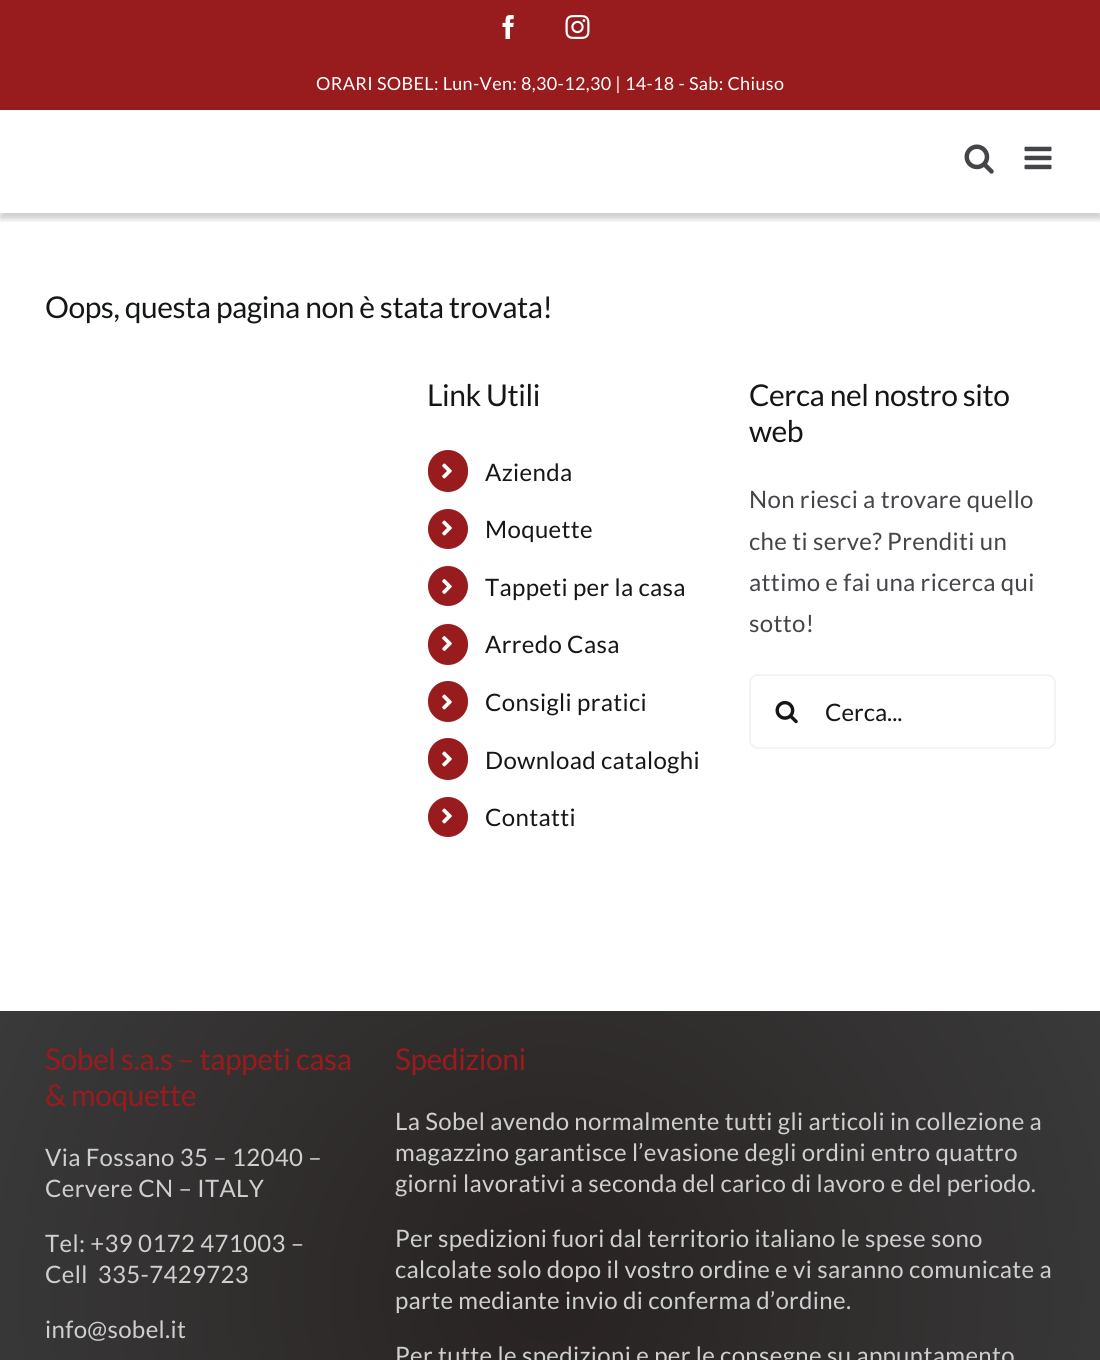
#include <cairo.h>
#include <math.h>
#include <stddef.h>

static cairo_t *ctx;

static void use_color(int r, int g, int b) {
    cairo_set_source_rgb(ctx, r / 255.0, g / 255.0, b / 255.0);
}

static void spaced_text(double x, double y, const char *s, double letter, double word) {
    cairo_move_to(ctx, x, y);
    while (*s) {
        char ch[5] = {0};
        int n = 0;
        do ch[n++] = *s++; while ((*s & 0xC0) == 0x80);
        cairo_show_text(ctx, ch);
        cairo_rel_move_to(ctx, letter + word * (*ch == ' '), 0);
    }
}

static void round_rect(double x, double y, double w, double h, double r) {
    cairo_new_sub_path(ctx);
    cairo_arc(ctx, x + w - r, y + h - r, r, 0, M_PI / 2);
    cairo_arc(ctx, x + r, y + h - r, r, M_PI / 2, M_PI);
    cairo_arc(ctx, x + r, y + r, r, M_PI, 1.5 * M_PI);
    cairo_arc(ctx, x + w - r, y + r, r, 1.5 * M_PI, 2 * M_PI);
    cairo_close_path(ctx);
}

static void shadow(double x, double y, double w, double h, double r, double blur, double alpha) {
    cairo_push_group_with_content(ctx, CAIRO_CONTENT_ALPHA);
    cairo_set_operator(ctx, CAIRO_OPERATOR_SOURCE);
    for (int i = 15; i >= -15 && fmin(w, h) + blur * i / 3 > 0; i -= 2) {
        double e = blur * i / 6;
        cairo_set_source_rgba(ctx, 0, 0, 0, alpha * erfc((i - 1) / 8.5) / 2);
        round_rect(x - e, y - e, w + 2 * e, h + 2 * e, fmax(0, fmin(r + e + blur * .6, fmin(w, h) / 2 + e)));
        cairo_fill(ctx);
    }
    cairo_pattern_t *soft = cairo_pop_group(ctx);
    cairo_mask(ctx, soft);
    cairo_pattern_destroy(soft);
}

static void picture(const char *path, double x, double y, double w, double h) {
    cairo_surface_t *image = cairo_image_surface_create_from_png(path);
    cairo_save(ctx);
    cairo_set_source_surface(ctx, image, x, y);
    cairo_rectangle(ctx, x, y, w, h);
    cairo_fill(ctx);
    cairo_restore(ctx);
    cairo_surface_destroy(image);
}

int main(void) {
    cairo_surface_t *surface = cairo_image_surface_create(CAIRO_FORMAT_RGB24, 1100, 1360);
    ctx = cairo_create(surface);
    cairo_font_options_t *options = cairo_font_options_create();
    cairo_font_options_set_hint_metrics(options, CAIRO_HINT_METRICS_OFF);
    cairo_font_options_set_hint_style(options, CAIRO_HINT_STYLE_NONE);
    cairo_set_font_options(ctx, options);
    cairo_set_miter_limit(ctx, 4);
    cairo_pattern_t *gradient;
    use_color(255, 255, 255);
    cairo_paint(ctx);
    cairo_save(ctx);
    cairo_rectangle(ctx, 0, 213, 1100, 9);
    cairo_clip(ctx);
    use_color(0, 0, 0);
    shadow(0, 6, 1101, 213, 0, 3, 0.1);
    shadow(0, 6, 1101, 213, 0, 3, 0.1);
    cairo_restore(ctx);
    use_color(152, 27, 30);
    cairo_rectangle(ctx, 0, 0, 1100, 110);
    cairo_fill(ctx);
    picture("img1.png", 502, 15, 12, 24);
    picture("img2.png", 565, 15, 25, 24);
    cairo_select_font_face(ctx, "Lato", CAIRO_FONT_SLANT_NORMAL, CAIRO_FONT_WEIGHT_NORMAL);
    cairo_set_font_size(ctx, 18);
    use_color(255, 255, 255);
    spaced_text(316, 90, "ORARI SOBEL: Lun-Ven: 8,30-12,30 | 14-18 - Sab: Chiuso", 0.35, 0);
    picture("img3.png", 964, 144, 30, 30);
    picture("img4.png", 1024, 146, 28, 24);
    cairo_set_font_size(ctx, 30);
    use_color(20, 22, 23);
    spaced_text(45, 318, "Oops, questa pagina non è stata trovata!", -0.45, 0);
    spaced_text(427, 406, "Link Utili", -0.45, 0);
    use_color(152, 27, 30);
    round_rect(428, 450, 40, 42, 20);
    cairo_fill(ctx);
    picture("img5.png", 442, 463, 10, 16);
    cairo_set_font_size(ctx, 24);
    use_color(20, 22, 23);
    spaced_text(485, 481, "Azienda", 0.35, 0);
    use_color(152, 27, 30);
    cairo_new_path(ctx);
    cairo_arc(ctx, 448, 529, 20, 0, 2 * M_PI);
    cairo_fill(ctx);
    picture("img5.png", 442, 520, 10, 16);
    use_color(20, 22, 23);
    spaced_text(485, 538, "Moquette", 0.35, 0);
    use_color(152, 27, 30);
    cairo_new_path(ctx);
    cairo_arc(ctx, 448, 586, 20, 0, 2 * M_PI);
    cairo_fill(ctx);
    picture("img6.png", 442, 579, 10, 15);
    use_color(20, 22, 23);
    spaced_text(485, 596, "Tappeti per la casa", 0.35, 0);
    use_color(152, 27, 30);
    round_rect(428, 624, 40, 41, 20);
    cairo_fill(ctx);
    picture("img6.png", 442, 636, 10, 15);
    use_color(20, 22, 23);
    spaced_text(485, 653, "Arredo Casa", 0.35, 0);
    use_color(152, 27, 30);
    round_rect(428, 681, 40, 41, 20);
    cairo_fill(ctx);
    picture("img5.png", 442, 694, 10, 16);
    use_color(20, 22, 23);
    spaced_text(485, 711, "Consigli pratici", 0.35, 0);
    use_color(152, 27, 30);
    round_rect(428, 738, 40, 42, 20);
    cairo_fill(ctx);
    picture("img5.png", 442, 751, 10, 16);
    use_color(20, 22, 23);
    spaced_text(485, 769, "Download cataloghi", 0.35, 0);
    use_color(152, 27, 30);
    cairo_new_path(ctx);
    cairo_arc(ctx, 448, 817, 20, 0, 2 * M_PI);
    cairo_fill(ctx);
    picture("img5.png", 442, 808, 10, 16);
    use_color(20, 22, 23);
    spaced_text(485, 826, "Contatti", 0.35, 0);
    cairo_set_font_size(ctx, 30);
    spaced_text(749, 406, "Cerca nel nostro sito", -0.45, 0);
    spaced_text(749, 442, "web", -0.45, 0);
    cairo_set_font_size(ctx, 24);
    use_color(67, 69, 73);
    spaced_text(749, 508, "Non riesci a trovare quello", 0.35, 0);
    spaced_text(749, 550, "che ti serve? Prenditi un", 0.35, 0);
    spaced_text(749, 591, "attimo e fai una ricerca qui", 0.35, 0);
    spaced_text(749, 632, "sotto!", 0.35, 0);
    round_rect(750, 675, 305, 73, 8);
    use_color(242, 243, 245);
    cairo_stroke(ctx);
    picture("img7.png", 775, 700, 23, 24);
    use_color(20, 22, 23);
    cairo_move_to(ctx, 825, 721);
    cairo_show_text(ctx, "Cerca...");
    gradient = cairo_pattern_create_radial(551, 1292, 0, 551, 1292, 618);
    cairo_pattern_add_color_stop_rgba(gradient, 0, 0.157, 0.133, 0.133, 1);
    cairo_pattern_add_color_stop_rgba(gradient, 1, 0.227, 0.227, 0.227, 1);
    cairo_set_source(ctx, gradient);
    cairo_pattern_destroy(gradient);
    cairo_rectangle(ctx, 0, 1011, 1100, 349);
    cairo_fill(ctx);
    cairo_set_font_size(ctx, 30);
    use_color(152, 27, 30);
    spaced_text(45, 1070, "Sobel s.a.s – tappeti casa", -0.45, 0);
    spaced_text(45, 1106, "& moquette", -0.45, 0);
    cairo_set_font_size(ctx, 24);
    use_color(207, 207, 207);
    spaced_text(45, 1166, "Via Fossano 35 – 12040 –", 0.35, 0);
    spaced_text(45, 1197, "Cervere CN – ITALY", 0.35, 0);
    spaced_text(45, 1252, "Tel: +39 0172 471003 –", 0.35, 0);
    spaced_text(45, 1283, "Cell  335-7429723", 0.35, 0);
    spaced_text(45, 1338, "info@sobel.it", 0.35, 0);
    cairo_set_font_size(ctx, 30);
    use_color(152, 27, 30);
    spaced_text(395, 1070, "Spedizioni", -0.45, 0);
    cairo_set_font_size(ctx, 24);
    use_color(207, 207, 207);
    spaced_text(395, 1130, "La Sobel avendo normalmente tutti gli articoli in collezione a", 0.35, 0);
    spaced_text(395, 1161, "magazzino garantisce l’evasione degli ordini entro quattro", 0.35, 0);
    spaced_text(395, 1192, "giorni lavorativi a seconda del carico di lavoro e del periodo.", 0.35, 0);
    spaced_text(395, 1247, "Per spedizioni fuori dal territorio italiano le spese sono", 0.35, 0);
    spaced_text(395, 1278, "calcolate solo dopo il vostro ordine e vi saranno comunicate a", 0.35, 0);
    spaced_text(395, 1309, "parte mediante invio di conferma d’ordine.", 0.35, 0);
    spaced_text(395, 1364, "Per tutte le spedizioni e per le consegne su appuntamento", 0.35, 0);
    cairo_surface_write_to_png(surface, "result.png");
    cairo_font_options_destroy(options);
    cairo_destroy(ctx);
    cairo_surface_destroy(surface);
    return 0;
}
